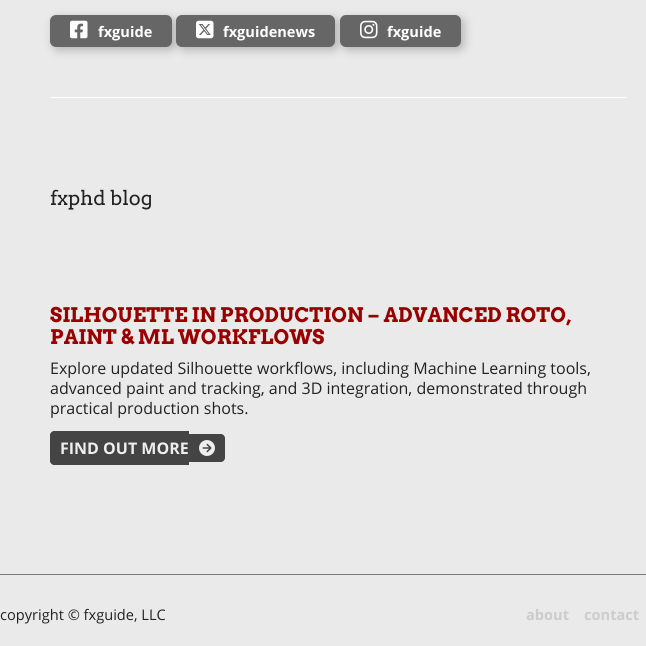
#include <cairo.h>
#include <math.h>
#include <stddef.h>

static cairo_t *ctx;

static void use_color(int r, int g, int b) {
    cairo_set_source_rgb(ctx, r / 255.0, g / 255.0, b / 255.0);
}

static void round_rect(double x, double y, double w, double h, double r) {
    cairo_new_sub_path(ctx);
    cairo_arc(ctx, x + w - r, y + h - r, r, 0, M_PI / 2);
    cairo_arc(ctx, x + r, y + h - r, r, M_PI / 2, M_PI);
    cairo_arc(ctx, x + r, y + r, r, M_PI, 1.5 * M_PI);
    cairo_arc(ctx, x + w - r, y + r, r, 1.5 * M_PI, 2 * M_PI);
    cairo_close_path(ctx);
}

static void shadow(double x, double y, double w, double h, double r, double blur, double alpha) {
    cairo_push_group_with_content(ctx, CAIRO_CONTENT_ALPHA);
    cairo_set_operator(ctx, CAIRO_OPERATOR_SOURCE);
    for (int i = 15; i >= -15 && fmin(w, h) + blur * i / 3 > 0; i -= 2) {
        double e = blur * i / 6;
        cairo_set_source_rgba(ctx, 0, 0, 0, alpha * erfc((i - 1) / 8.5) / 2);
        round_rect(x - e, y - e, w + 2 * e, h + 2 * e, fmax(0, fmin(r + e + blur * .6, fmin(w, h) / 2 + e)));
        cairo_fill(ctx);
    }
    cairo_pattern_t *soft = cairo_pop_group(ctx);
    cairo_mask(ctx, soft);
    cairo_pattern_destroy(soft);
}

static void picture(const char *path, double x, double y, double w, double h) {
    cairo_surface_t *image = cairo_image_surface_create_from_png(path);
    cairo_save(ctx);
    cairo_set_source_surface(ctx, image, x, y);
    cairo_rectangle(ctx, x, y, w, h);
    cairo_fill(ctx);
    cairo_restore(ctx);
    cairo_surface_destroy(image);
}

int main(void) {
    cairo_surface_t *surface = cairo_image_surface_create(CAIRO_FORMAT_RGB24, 646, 646);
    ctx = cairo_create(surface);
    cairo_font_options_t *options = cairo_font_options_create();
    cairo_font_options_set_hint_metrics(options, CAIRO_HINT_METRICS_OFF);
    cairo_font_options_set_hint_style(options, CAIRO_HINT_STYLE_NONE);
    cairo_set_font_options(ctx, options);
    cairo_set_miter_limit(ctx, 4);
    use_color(234, 234, 234);
    cairo_paint(ctx);
    use_color(0, 0, 0);
    shadow(53, 18, 122, 32, 6, 5, 0.24);
    use_color(102, 102, 102);
    round_rect(50, 15, 122, 32, 6);
    cairo_fill(ctx);
    picture("img1.png", 70, 20, 18, 19);
    cairo_select_font_face(ctx, "Open Sans", CAIRO_FONT_SLANT_NORMAL, CAIRO_FONT_WEIGHT_BOLD);
    cairo_set_font_size(ctx, 14.6);
    use_color(255, 255, 255);
    cairo_move_to(ctx, 98, 37);
    cairo_show_text(ctx, "fxguide");
    use_color(0, 0, 0);
    shadow(179, 18, 159, 32, 6, 5, 0.24);
    use_color(102, 102, 102);
    round_rect(176, 15, 159, 32, 6);
    cairo_fill(ctx);
    picture("img2.png", 196, 20, 18, 19);
    use_color(255, 255, 255);
    cairo_move_to(ctx, 223, 37);
    cairo_show_text(ctx, "fxguidenews");
    use_color(0, 0, 0);
    shadow(343, 18, 121, 32, 6, 5, 0.24);
    use_color(102, 102, 102);
    round_rect(340, 15, 121, 32, 6);
    cairo_fill(ctx);
    picture("img3.png", 360, 20, 18, 19);
    use_color(255, 255, 255);
    cairo_move_to(ctx, 387, 37);
    cairo_show_text(ctx, "fxguide");
    cairo_rectangle(ctx, 50, 97, 576, 1);
    cairo_fill(ctx);
    cairo_select_font_face(ctx, "Arvo", CAIRO_FONT_SLANT_NORMAL, CAIRO_FONT_WEIGHT_NORMAL);
    cairo_set_font_size(ctx, 20);
    use_color(34, 34, 34);
    cairo_move_to(ctx, 50, 205);
    cairo_show_text(ctx, "fxphd blog");
    cairo_select_font_face(ctx, "Arvo", CAIRO_FONT_SLANT_NORMAL, CAIRO_FONT_WEIGHT_BOLD);
    use_color(153, 0, 0);
    cairo_move_to(ctx, 50, 322);
    cairo_show_text(ctx, "SILHOUETTE IN PRODUCTION – ADVANCED ROTO,");
    cairo_move_to(ctx, 50, 344);
    cairo_show_text(ctx, "PAINT & ML WORKFLOWS");
    cairo_select_font_face(ctx, "Open Sans", CAIRO_FONT_SLANT_NORMAL, CAIRO_FONT_WEIGHT_NORMAL);
    cairo_set_font_size(ctx, 16);
    use_color(34, 34, 34);
    cairo_move_to(ctx, 50, 374);
    cairo_show_text(ctx, "Explore updated Silhouette workflows, including Machine Learning tools,");
    cairo_move_to(ctx, 50, 394);
    cairo_show_text(ctx, "advanced paint and tracking, and 3D integration, demonstrated through");
    cairo_move_to(ctx, 50, 414);
    cairo_show_text(ctx, "practical production shots.");
    use_color(68, 68, 68);
    cairo_new_path(ctx);
    cairo_move_to(ctx, 54, 431);
    cairo_line_to(ctx, 189, 431);
    cairo_line_to(ctx, 189, 465);
    cairo_line_to(ctx, 54, 465);
    cairo_curve_to(ctx, 52, 465, 50, 463, 50, 461);
    cairo_line_to(ctx, 50, 435);
    cairo_curve_to(ctx, 50, 433, 52, 431, 54, 431);
    cairo_close_path(ctx);
    cairo_fill(ctx);
    cairo_select_font_face(ctx, "Open Sans", CAIRO_FONT_SLANT_NORMAL, CAIRO_FONT_WEIGHT_BOLD);
    use_color(238, 238, 238);
    cairo_move_to(ctx, 60, 454);
    cairo_show_text(ctx, "FIND OUT MORE");
    use_color(68, 68, 68);
    cairo_new_path(ctx);
    cairo_move_to(ctx, 189, 434);
    cairo_line_to(ctx, 221, 434);
    cairo_curve_to(ctx, 223, 434, 225, 436, 225, 438);
    cairo_line_to(ctx, 225, 458);
    cairo_curve_to(ctx, 225, 460, 223, 462, 221, 462);
    cairo_line_to(ctx, 189, 462);
    cairo_close_path(ctx);
    cairo_fill(ctx);
    picture("img4.png", 199, 440, 16, 16);
    use_color(122, 122, 122);
    cairo_rectangle(ctx, 0, 574, 646, 1);
    cairo_fill(ctx);
    cairo_select_font_face(ctx, "Open Sans", CAIRO_FONT_SLANT_NORMAL, CAIRO_FONT_WEIGHT_NORMAL);
    cairo_set_font_size(ctx, 14.6);
    use_color(34, 34, 34);
    cairo_move_to(ctx, 0, 620);
    cairo_show_text(ctx, "copyright © fxguide, LLC");
    cairo_select_font_face(ctx, "Open Sans", CAIRO_FONT_SLANT_NORMAL, CAIRO_FONT_WEIGHT_BOLD);
    use_color(204, 204, 204);
    cairo_move_to(ctx, 526, 620);
    cairo_show_text(ctx, "about");
    cairo_move_to(ctx, 584, 620);
    cairo_show_text(ctx, "contact");
    cairo_surface_write_to_png(surface, "result.png");
    cairo_font_options_destroy(options);
    cairo_destroy(ctx);
    cairo_surface_destroy(surface);
    return 0;
}
